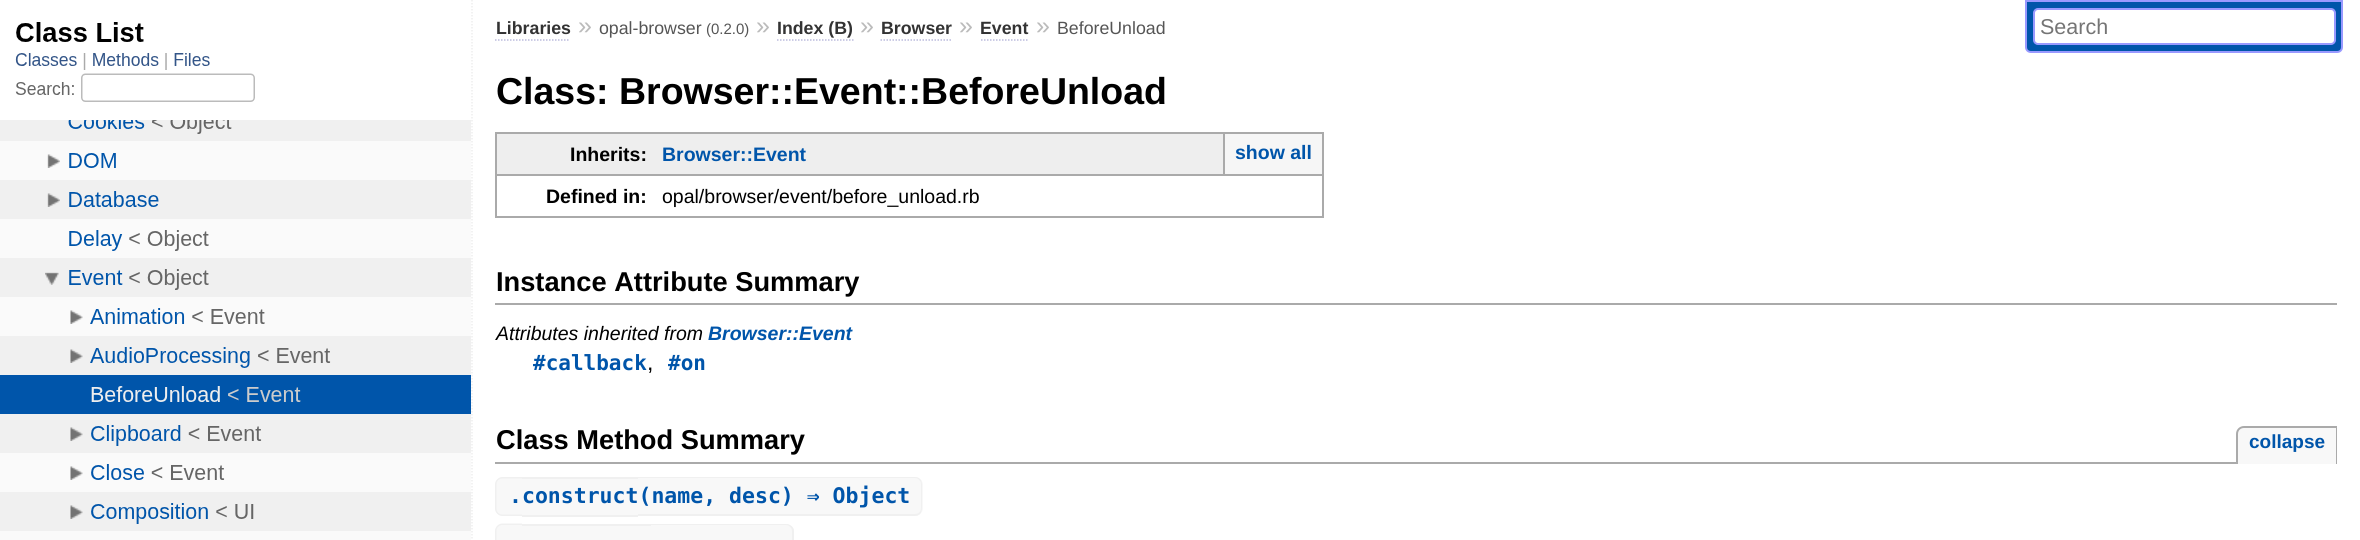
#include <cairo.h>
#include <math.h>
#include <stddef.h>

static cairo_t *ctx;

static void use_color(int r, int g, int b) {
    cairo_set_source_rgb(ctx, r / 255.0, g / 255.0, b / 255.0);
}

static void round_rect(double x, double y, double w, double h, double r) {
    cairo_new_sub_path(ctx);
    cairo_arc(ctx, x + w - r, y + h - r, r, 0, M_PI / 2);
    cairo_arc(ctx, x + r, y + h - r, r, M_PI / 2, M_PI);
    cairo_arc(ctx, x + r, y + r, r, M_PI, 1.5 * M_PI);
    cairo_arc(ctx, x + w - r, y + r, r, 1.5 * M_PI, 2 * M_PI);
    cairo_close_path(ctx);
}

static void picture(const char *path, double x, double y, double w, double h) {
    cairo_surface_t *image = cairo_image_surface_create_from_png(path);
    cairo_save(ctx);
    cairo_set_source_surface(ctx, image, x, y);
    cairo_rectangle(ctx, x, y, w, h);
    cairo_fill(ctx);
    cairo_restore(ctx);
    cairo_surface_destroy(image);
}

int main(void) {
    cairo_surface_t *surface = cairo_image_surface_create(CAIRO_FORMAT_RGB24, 2360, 540);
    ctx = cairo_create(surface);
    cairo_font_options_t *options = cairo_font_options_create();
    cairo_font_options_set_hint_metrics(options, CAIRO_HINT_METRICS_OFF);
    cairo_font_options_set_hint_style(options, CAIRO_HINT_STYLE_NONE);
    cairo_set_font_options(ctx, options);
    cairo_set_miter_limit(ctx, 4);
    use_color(255, 255, 255);
    cairo_paint(ctx);
    cairo_new_path(ctx);
    cairo_move_to(ctx, 472, 0);
    cairo_line_to(ctx, 472, 540);
    use_color(238, 238, 238);
    cairo_set_line_width(ctx, 1.5);
    cairo_set_dash(ctx, (double[]){1.5, 1.5}, 2, 0);
    cairo_stroke(ctx);
    picture("img1.png", 0, 22, 471, 518);
    cairo_select_font_face(ctx, "Liberation Sans", CAIRO_FONT_SLANT_NORMAL, CAIRO_FONT_WEIGHT_BOLD);
    cairo_set_font_size(ctx, 17.75);
    use_color(51, 51, 51);
    cairo_move_to(ctx, 496, 34);
    cairo_show_text(ctx, "Libraries");
    cairo_new_path(ctx);
    cairo_move_to(ctx, 495, 40);
    cairo_line_to(ctx, 570, 40);
    use_color(187, 187, 221);
    cairo_stroke(ctx);
    cairo_select_font_face(ctx, "Liberation Sans", CAIRO_FONT_SLANT_NORMAL, CAIRO_FONT_WEIGHT_NORMAL);
    cairo_set_font_size(ctx, 25);
    use_color(187, 187, 187);
    cairo_move_to(ctx, 578, 34);
    cairo_show_text(ctx, "»");
    cairo_set_font_size(ctx, 17.75);
    use_color(85, 85, 85);
    cairo_move_to(ctx, 599, 34);
    cairo_show_text(ctx, "opal-browser");
    cairo_set_font_size(ctx, 15);
    cairo_move_to(ctx, 706, 34);
    cairo_show_text(ctx, "(0.2.0)");
    cairo_set_font_size(ctx, 25);
    use_color(187, 187, 187);
    cairo_move_to(ctx, 756, 34);
    cairo_show_text(ctx, "»");
    cairo_select_font_face(ctx, "Liberation Sans", CAIRO_FONT_SLANT_NORMAL, CAIRO_FONT_WEIGHT_BOLD);
    cairo_set_font_size(ctx, 17.75);
    use_color(51, 51, 51);
    cairo_move_to(ctx, 777, 34);
    cairo_show_text(ctx, "Index (B)");
    cairo_new_path(ctx);
    cairo_move_to(ctx, 777, 40);
    cairo_line_to(ctx, 853.5, 40);
    use_color(187, 187, 221);
    cairo_stroke(ctx);
    cairo_select_font_face(ctx, "Liberation Sans", CAIRO_FONT_SLANT_NORMAL, CAIRO_FONT_WEIGHT_NORMAL);
    cairo_set_font_size(ctx, 25);
    use_color(187, 187, 187);
    cairo_move_to(ctx, 860, 34);
    cairo_show_text(ctx, "»");
    cairo_select_font_face(ctx, "Liberation Sans", CAIRO_FONT_SLANT_NORMAL, CAIRO_FONT_WEIGHT_BOLD);
    cairo_set_font_size(ctx, 17.75);
    use_color(51, 51, 51);
    cairo_move_to(ctx, 881, 34);
    cairo_show_text(ctx, "Browser");
    cairo_new_path(ctx);
    cairo_move_to(ctx, 880.5, 40);
    cairo_line_to(ctx, 952.5, 40);
    use_color(187, 187, 221);
    cairo_stroke(ctx);
    cairo_select_font_face(ctx, "Liberation Sans", CAIRO_FONT_SLANT_NORMAL, CAIRO_FONT_WEIGHT_NORMAL);
    cairo_set_font_size(ctx, 25);
    use_color(187, 187, 187);
    cairo_move_to(ctx, 959, 34);
    cairo_show_text(ctx, "»");
    cairo_select_font_face(ctx, "Liberation Sans", CAIRO_FONT_SLANT_NORMAL, CAIRO_FONT_WEIGHT_BOLD);
    cairo_set_font_size(ctx, 17.75);
    use_color(51, 51, 51);
    cairo_move_to(ctx, 980, 34);
    cairo_show_text(ctx, "Event");
    cairo_new_path(ctx);
    cairo_move_to(ctx, 981, 40);
    cairo_line_to(ctx, 1029, 40);
    use_color(187, 187, 221);
    cairo_stroke(ctx);
    cairo_select_font_face(ctx, "Liberation Sans", CAIRO_FONT_SLANT_NORMAL, CAIRO_FONT_WEIGHT_NORMAL);
    cairo_set_font_size(ctx, 25);
    use_color(187, 187, 187);
    cairo_move_to(ctx, 1036, 34);
    cairo_show_text(ctx, "»");
    cairo_set_font_size(ctx, 17.75);
    use_color(85, 85, 85);
    cairo_move_to(ctx, 1057, 34);
    cairo_show_text(ctx, "BeforeUnload");
    use_color(0, 85, 170);
    cairo_new_path(ctx);
    cairo_move_to(ctx, 2026, 1);
    cairo_line_to(ctx, 2342, 1);
    cairo_line_to(ctx, 2342, 47);
    cairo_curve_to(ctx, 2342, 50, 2340, 52, 2337, 52);
    cairo_line_to(ctx, 2031, 52);
    cairo_curve_to(ctx, 2028, 52, 2026, 50, 2026, 47);
    cairo_close_path(ctx);
    cairo_fill_preserve(ctx);
    use_color(153, 153, 255);
    cairo_set_line_width(ctx, 2);
    cairo_set_dash(ctx, NULL, 0, 0);
    cairo_stroke(ctx);
    use_color(255, 255, 255);
    round_rect(2034, 9, 301, 35, 4);
    cairo_fill_preserve(ctx);
    use_color(153, 153, 255);
    cairo_stroke(ctx);
    cairo_set_font_size(ctx, 21.5);
    use_color(117, 117, 117);
    cairo_move_to(ctx, 2040, 34);
    cairo_show_text(ctx, "Search");
    cairo_select_font_face(ctx, "Liberation Sans", CAIRO_FONT_SLANT_NORMAL, CAIRO_FONT_WEIGHT_BOLD);
    cairo_set_font_size(ctx, 37.5);
    use_color(0, 0, 0);
    cairo_move_to(ctx, 496, 104);
    cairo_show_text(ctx, "Class: Browser::Event::BeforeUnload");
    use_color(238, 238, 238);
    cairo_rectangle(ctx, 497, 134, 726, 40);
    cairo_fill(ctx);
    use_color(170, 170, 170);
    cairo_rectangle(ctx, 495, 132, 828, 2);
    cairo_fill(ctx);
    cairo_rectangle(ctx, 495, 132, 2, 42);
    cairo_fill(ctx);
    cairo_set_font_size(ctx, 19.5);
    use_color(0, 0, 0);
    cairo_move_to(ctx, 570, 161);
    cairo_show_text(ctx, "Inherits:");
    use_color(170, 170, 170);
    cairo_rectangle(ctx, 495, 174, 828, 2);
    cairo_fill(ctx);
    cairo_rectangle(ctx, 1322, 132, 2, 86);
    cairo_fill(ctx);
    use_color(0, 85, 170);
    cairo_move_to(ctx, 662, 161);
    cairo_show_text(ctx, "Browser::Event");
    use_color(246, 246, 246);
    cairo_rectangle(ctx, 1225, 134, 97, 40);
    cairo_fill(ctx);
    use_color(170, 170, 170);
    cairo_rectangle(ctx, 1223, 134, 2, 40);
    cairo_fill(ctx);
    use_color(0, 85, 170);
    cairo_move_to(ctx, 1235, 159);
    cairo_show_text(ctx, "show all");
    use_color(170, 170, 170);
    cairo_rectangle(ctx, 495, 216, 167, 2);
    cairo_fill(ctx);
    cairo_rectangle(ctx, 495, 174, 2, 44);
    cairo_fill(ctx);
    use_color(0, 0, 0);
    cairo_move_to(ctx, 546, 203);
    cairo_show_text(ctx, "Defined in:");
    use_color(170, 170, 170);
    cairo_rectangle(ctx, 662, 216, 661, 2);
    cairo_fill(ctx);
    cairo_select_font_face(ctx, "Liberation Sans", CAIRO_FONT_SLANT_NORMAL, CAIRO_FONT_WEIGHT_NORMAL);
    use_color(0, 0, 0);
    cairo_move_to(ctx, 662, 203);
    cairo_show_text(ctx, "opal/browser/event/before_unload.rb");
    use_color(170, 170, 170);
    cairo_rectangle(ctx, 495, 303, 1842, 2);
    cairo_fill(ctx);
    cairo_select_font_face(ctx, "Liberation Sans", CAIRO_FONT_SLANT_NORMAL, CAIRO_FONT_WEIGHT_BOLD);
    cairo_set_font_size(ctx, 27.25);
    use_color(0, 0, 0);
    cairo_move_to(ctx, 496, 291);
    cairo_show_text(ctx, "Instance Attribute Summary");
    cairo_select_font_face(ctx, "Liberation Sans", CAIRO_FONT_SLANT_ITALIC, CAIRO_FONT_WEIGHT_NORMAL);
    cairo_set_font_size(ctx, 19.5);
    cairo_move_to(ctx, 496, 340);
    cairo_show_text(ctx, "Attributes inherited from");
    cairo_select_font_face(ctx, "Liberation Sans", CAIRO_FONT_SLANT_ITALIC, CAIRO_FONT_WEIGHT_BOLD);
    use_color(0, 85, 170);
    cairo_move_to(ctx, 708, 340);
    cairo_show_text(ctx, "Browser::Event");
    cairo_select_font_face(ctx, "DejaVu Sans Mono", CAIRO_FONT_SLANT_NORMAL, CAIRO_FONT_WEIGHT_BOLD);
    cairo_set_font_size(ctx, 21);
    cairo_move_to(ctx, 533, 370);
    cairo_show_text(ctx, "#callback");
    cairo_select_font_face(ctx, "Liberation Sans", CAIRO_FONT_SLANT_NORMAL, CAIRO_FONT_WEIGHT_NORMAL);
    cairo_set_font_size(ctx, 23);
    use_color(0, 0, 0);
    cairo_move_to(ctx, 647, 370);
    cairo_show_text(ctx, ",");
    cairo_select_font_face(ctx, "DejaVu Sans Mono", CAIRO_FONT_SLANT_NORMAL, CAIRO_FONT_WEIGHT_BOLD);
    cairo_set_font_size(ctx, 21);
    use_color(0, 85, 170);
    cairo_move_to(ctx, 668, 370);
    cairo_show_text(ctx, "#on");
    use_color(170, 170, 170);
    cairo_rectangle(ctx, 495, 462, 1741, 2);
    cairo_fill(ctx);
    cairo_select_font_face(ctx, "Liberation Sans", CAIRO_FONT_SLANT_NORMAL, CAIRO_FONT_WEIGHT_BOLD);
    cairo_set_font_size(ctx, 27.25);
    use_color(0, 0, 0);
    cairo_move_to(ctx, 496, 449);
    cairo_show_text(ctx, "Class Method Summary");
    use_color(248, 248, 248);
    cairo_new_path(ctx);
    cairo_move_to(ctx, 2245, 426);
    cairo_line_to(ctx, 2337, 426);
    cairo_line_to(ctx, 2337, 464);
    cairo_line_to(ctx, 2237, 464);
    cairo_line_to(ctx, 2237, 434);
    cairo_curve_to(ctx, 2237, 429.5, 2240.5, 426, 2245, 426);
    cairo_close_path(ctx);
    cairo_fill(ctx);
    use_color(170, 170, 170);
    cairo_set_fill_rule(ctx, CAIRO_FILL_RULE_EVEN_ODD);
    cairo_new_path(ctx);
    cairo_move_to(ctx, 2244, 426);
    cairo_line_to(ctx, 2337, 426);
    cairo_line_to(ctx, 2337, 464);
    cairo_line_to(ctx, 2236, 464);
    cairo_line_to(ctx, 2236, 434);
    cairo_curve_to(ctx, 2236, 429, 2240, 426, 2244, 426);
    cairo_close_path(ctx);
    cairo_move_to(ctx, 2244, 428);
    cairo_line_to(ctx, 2336, 428);
    cairo_line_to(ctx, 2336, 464);
    cairo_line_to(ctx, 2238, 464);
    cairo_line_to(ctx, 2238, 434);
    cairo_curve_to(ctx, 2238, 430, 2241, 428, 2244, 428);
    cairo_close_path(ctx);
    cairo_fill(ctx);
    cairo_set_font_size(ctx, 19);
    use_color(0, 85, 170);
    cairo_move_to(ctx, 2249, 448);
    cairo_show_text(ctx, "collapse");
    use_color(248, 248, 248);
    cairo_new_path(ctx);
    cairo_move_to(ctx, 503, 477);
    cairo_line_to(ctx, 522, 477);
    cairo_line_to(ctx, 522, 516);
    cairo_line_to(ctx, 503, 516);
    cairo_curve_to(ctx, 498.5, 516, 495, 512.5, 495, 508);
    cairo_line_to(ctx, 495, 485);
    cairo_curve_to(ctx, 495, 480.5, 498.5, 477, 503, 477);
    cairo_close_path(ctx);
    cairo_fill(ctx);
    use_color(240, 240, 240);
    cairo_new_path(ctx);
    cairo_move_to(ctx, 502.5, 477);
    cairo_line_to(ctx, 522, 477);
    cairo_line_to(ctx, 522, 516);
    cairo_line_to(ctx, 502.5, 516);
    cairo_curve_to(ctx, 498.5, 516, 495, 512.5, 495, 508.5);
    cairo_line_to(ctx, 495, 484.5);
    cairo_curve_to(ctx, 495, 480.5, 498.5, 477, 502.5, 477);
    cairo_close_path(ctx);
    cairo_move_to(ctx, 502.5, 478.5);
    cairo_line_to(ctx, 522, 478.5);
    cairo_line_to(ctx, 522, 514.5);
    cairo_line_to(ctx, 502.5, 514.5);
    cairo_curve_to(ctx, 499, 514.5, 496.5, 512, 496.5, 508.5);
    cairo_line_to(ctx, 496.5, 484.5);
    cairo_curve_to(ctx, 496.5, 481, 499, 478.5, 502.5, 478.5);
    cairo_close_path(ctx);
    cairo_fill(ctx);
    use_color(248, 248, 248);
    cairo_rectangle(ctx, 522, 479, 116, 36);
    cairo_fill(ctx);
    cairo_new_path(ctx);
    cairo_move_to(ctx, 638, 477);
    cairo_line_to(ctx, 915, 477);
    cairo_curve_to(ctx, 919.5, 477, 923, 480.5, 923, 485);
    cairo_line_to(ctx, 923, 508);
    cairo_curve_to(ctx, 923, 512.5, 919.5, 516, 915, 516);
    cairo_line_to(ctx, 638, 516);
    cairo_close_path(ctx);
    cairo_fill(ctx);
    use_color(240, 240, 240);
    cairo_new_path(ctx);
    cairo_move_to(ctx, 638, 477);
    cairo_line_to(ctx, 915, 477);
    cairo_curve_to(ctx, 919, 477, 922, 480, 922, 484);
    cairo_line_to(ctx, 922, 508);
    cairo_curve_to(ctx, 922, 513, 919, 516, 915, 516);
    cairo_line_to(ctx, 638, 516);
    cairo_close_path(ctx);
    cairo_move_to(ctx, 638, 478);
    cairo_line_to(ctx, 915, 478);
    cairo_curve_to(ctx, 918, 478, 921, 481, 921, 484);
    cairo_line_to(ctx, 921, 508);
    cairo_curve_to(ctx, 921, 512, 918, 514, 915, 514);
    cairo_line_to(ctx, 638, 514);
    cairo_close_path(ctx);
    cairo_fill(ctx);
    cairo_select_font_face(ctx, "DejaVu Sans Mono", CAIRO_FONT_SLANT_NORMAL, CAIRO_FONT_WEIGHT_BOLD);
    cairo_set_font_size(ctx, 21.5);
    use_color(0, 85, 170);
    cairo_move_to(ctx, 509, 503);
    cairo_show_text(ctx, ".construct(name, desc) ⇒ Object");
    use_color(240, 240, 240);
    cairo_rectangle(ctx, 522, 477, 116, 2);
    cairo_fill(ctx);
    cairo_rectangle(ctx, 522, 515, 116, 2);
    cairo_fill(ctx);
    use_color(248, 248, 248);
    cairo_new_path(ctx);
    cairo_move_to(ctx, 503, 524);
    cairo_line_to(ctx, 522, 524);
    cairo_line_to(ctx, 522, 540);
    cairo_line_to(ctx, 495, 540);
    cairo_line_to(ctx, 495, 532);
    cairo_curve_to(ctx, 495, 527.5, 498.5, 524, 503, 524);
    cairo_close_path(ctx);
    cairo_fill(ctx);
    use_color(240, 240, 240);
    cairo_new_path(ctx);
    cairo_move_to(ctx, 502.5, 523.5);
    cairo_line_to(ctx, 522, 523.5);
    cairo_line_to(ctx, 522, 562.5);
    cairo_line_to(ctx, 502.5, 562.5);
    cairo_curve_to(ctx, 498.5, 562.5, 495, 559, 495, 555);
    cairo_line_to(ctx, 495, 531);
    cairo_curve_to(ctx, 495, 527, 498.5, 523.5, 502.5, 523.5);
    cairo_close_path(ctx);
    cairo_move_to(ctx, 502.5, 525);
    cairo_line_to(ctx, 522, 525);
    cairo_line_to(ctx, 522, 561);
    cairo_line_to(ctx, 502.5, 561);
    cairo_curve_to(ctx, 499, 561, 496.5, 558.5, 496.5, 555);
    cairo_line_to(ctx, 496.5, 531);
    cairo_curve_to(ctx, 496.5, 527.5, 499, 525, 502.5, 525);
    cairo_close_path(ctx);
    cairo_fill(ctx);
    cairo_rectangle(ctx, 522, 524, 129, 2);
    cairo_fill(ctx);
    use_color(248, 248, 248);
    cairo_new_path(ctx);
    cairo_move_to(ctx, 651, 524);
    cairo_line_to(ctx, 786, 524);
    cairo_curve_to(ctx, 790.5, 524, 794, 527.5, 794, 532);
    cairo_line_to(ctx, 794, 540);
    cairo_line_to(ctx, 651, 540);
    cairo_close_path(ctx);
    cairo_fill(ctx);
    cairo_rectangle(ctx, 522, 526, 129, 14);
    cairo_fill(ctx);
    use_color(240, 240, 240);
    cairo_new_path(ctx);
    cairo_move_to(ctx, 651, 524);
    cairo_line_to(ctx, 786, 524);
    cairo_curve_to(ctx, 790, 524, 794, 527, 794, 531);
    cairo_line_to(ctx, 794, 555);
    cairo_curve_to(ctx, 794, 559, 790, 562, 786, 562);
    cairo_line_to(ctx, 651, 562);
    cairo_close_path(ctx);
    cairo_move_to(ctx, 651, 525);
    cairo_line_to(ctx, 786, 525);
    cairo_curve_to(ctx, 789, 525, 792, 528, 792, 531);
    cairo_line_to(ctx, 792, 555);
    cairo_curve_to(ctx, 792, 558, 789, 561, 786, 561);
    cairo_line_to(ctx, 651, 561);
    cairo_close_path(ctx);
    cairo_fill(ctx);
    cairo_surface_write_to_png(surface, "result.png");
    cairo_font_options_destroy(options);
    cairo_destroy(ctx);
    cairo_surface_destroy(surface);
    return 0;
}
